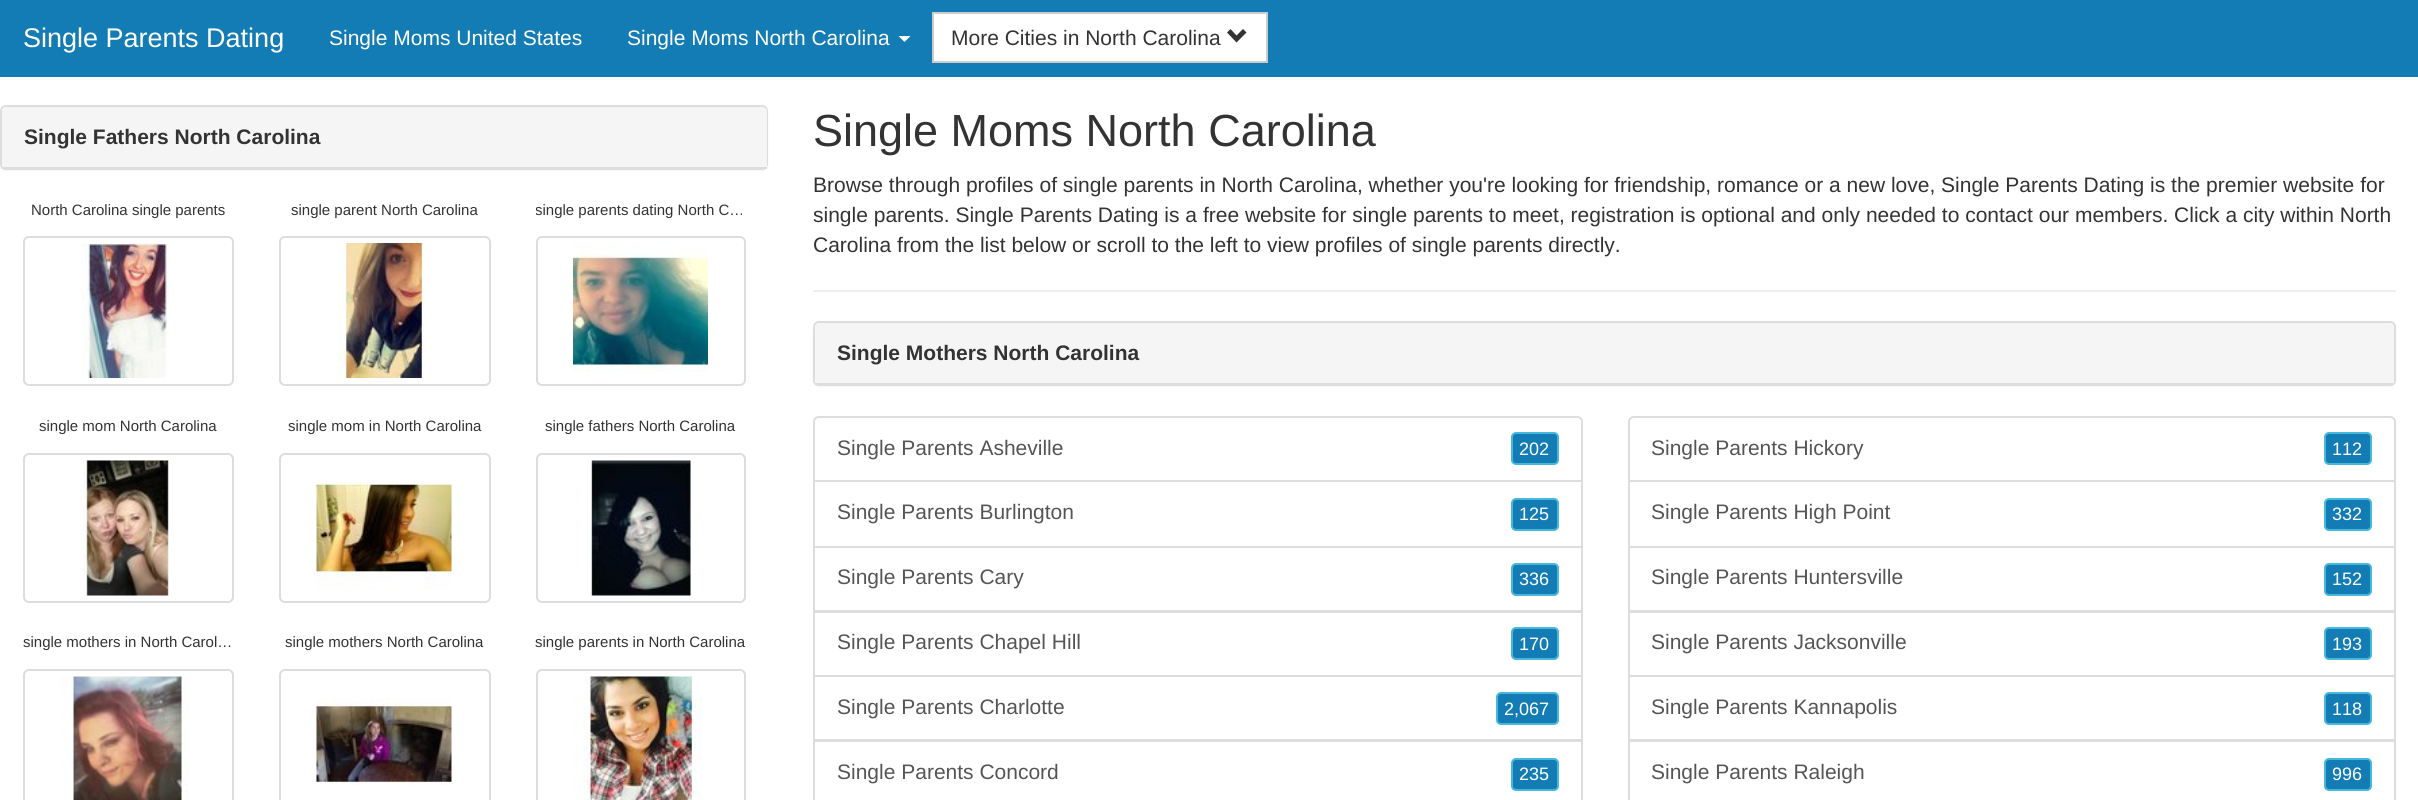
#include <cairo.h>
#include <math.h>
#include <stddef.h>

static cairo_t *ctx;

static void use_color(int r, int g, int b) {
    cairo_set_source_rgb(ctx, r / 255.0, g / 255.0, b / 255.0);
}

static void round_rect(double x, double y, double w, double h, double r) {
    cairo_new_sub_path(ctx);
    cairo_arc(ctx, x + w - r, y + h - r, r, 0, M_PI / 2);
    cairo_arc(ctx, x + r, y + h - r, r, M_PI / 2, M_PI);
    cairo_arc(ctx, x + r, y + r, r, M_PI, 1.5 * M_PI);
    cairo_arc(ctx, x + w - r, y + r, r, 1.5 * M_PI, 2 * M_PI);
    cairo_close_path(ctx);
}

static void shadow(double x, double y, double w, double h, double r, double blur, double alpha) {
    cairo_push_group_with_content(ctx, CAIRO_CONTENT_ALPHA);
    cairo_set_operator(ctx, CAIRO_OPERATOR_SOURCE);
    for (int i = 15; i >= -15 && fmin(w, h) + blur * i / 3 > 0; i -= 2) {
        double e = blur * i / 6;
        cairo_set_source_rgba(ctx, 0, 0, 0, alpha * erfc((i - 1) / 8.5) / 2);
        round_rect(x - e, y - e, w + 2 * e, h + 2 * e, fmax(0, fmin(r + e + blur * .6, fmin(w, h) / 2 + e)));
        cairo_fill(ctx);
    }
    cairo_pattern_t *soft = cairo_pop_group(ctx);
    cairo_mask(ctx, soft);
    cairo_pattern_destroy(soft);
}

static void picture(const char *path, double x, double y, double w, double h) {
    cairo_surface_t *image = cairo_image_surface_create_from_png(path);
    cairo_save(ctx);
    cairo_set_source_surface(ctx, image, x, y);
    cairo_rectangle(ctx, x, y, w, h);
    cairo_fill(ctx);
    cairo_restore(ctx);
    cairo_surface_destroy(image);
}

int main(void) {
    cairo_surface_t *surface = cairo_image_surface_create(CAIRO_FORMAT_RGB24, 2418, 800);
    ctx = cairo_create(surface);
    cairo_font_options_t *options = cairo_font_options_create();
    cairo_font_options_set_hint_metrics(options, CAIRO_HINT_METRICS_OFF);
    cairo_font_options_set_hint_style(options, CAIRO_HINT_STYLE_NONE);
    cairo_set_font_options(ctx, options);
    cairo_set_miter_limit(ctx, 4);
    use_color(255, 255, 255);
    cairo_paint(ctx);
    use_color(19, 124, 180);
    cairo_rectangle(ctx, 0, 0, 2418, 77);
    cairo_fill(ctx);
    cairo_select_font_face(ctx, "Liberation Sans", CAIRO_FONT_SLANT_NORMAL, CAIRO_FONT_WEIGHT_NORMAL);
    cairo_set_font_size(ctx, 27);
    use_color(255, 255, 255);
    cairo_move_to(ctx, 23, 47);
    cairo_show_text(ctx, "Single Parents Dating");
    cairo_set_font_size(ctx, 21);
    cairo_move_to(ctx, 329, 45);
    cairo_show_text(ctx, "Single Moms United States");
    cairo_move_to(ctx, 627, 45);
    cairo_show_text(ctx, "Single Moms North Carolina");
    use_color(254, 254, 254);
    cairo_new_path(ctx);
    cairo_move_to(ctx, 898.5, 36);
    cairo_line_to(ctx, 910.5, 36);
    cairo_line_to(ctx, 904.5, 42);
    cairo_close_path(ctx);
    cairo_fill(ctx);
    use_color(255, 255, 255);
    cairo_rectangle(ctx, 933, 13, 334, 49);
    cairo_fill_preserve(ctx);
    use_color(204, 204, 204);
    cairo_stroke(ctx);
    use_color(51, 51, 51);
    cairo_move_to(ctx, 951, 45);
    cairo_show_text(ctx, "More Cities in North Carolina");
    cairo_new_path(ctx);
    cairo_move_to(ctx, 1246.5, 32.5);
    cairo_line_to(ctx, 1236.5, 42.5);
    cairo_line_to(ctx, 1227, 32.5);
    cairo_line_to(ctx, 1230.5, 29);
    cairo_line_to(ctx, 1236.5, 35.5);
    cairo_line_to(ctx, 1243, 29);
    cairo_close_path(ctx);
    cairo_fill(ctx);
    use_color(0, 0, 0);
    shadow(0, 107, 768, 64, 6, 1, 0.05);
    use_color(255, 255, 255);
    round_rect(1, 106, 766, 63, 5);
    cairo_fill_preserve(ctx);
    use_color(221, 221, 221);
    cairo_stroke(ctx);
    use_color(245, 245, 245);
    cairo_new_path(ctx);
    cairo_move_to(ctx, 7, 107);
    cairo_line_to(ctx, 762, 107);
    cairo_curve_to(ctx, 765, 107, 767, 109, 767, 112);
    cairo_line_to(ctx, 767, 168);
    cairo_line_to(ctx, 2, 168);
    cairo_line_to(ctx, 2, 112);
    cairo_curve_to(ctx, 2, 109, 4, 107, 7, 107);
    cairo_close_path(ctx);
    cairo_fill(ctx);
    use_color(221, 221, 221);
    cairo_rectangle(ctx, 2, 167, 765, 2);
    cairo_fill(ctx);
    cairo_select_font_face(ctx, "Liberation Sans", CAIRO_FONT_SLANT_NORMAL, CAIRO_FONT_WEIGHT_BOLD);
    use_color(51, 51, 51);
    cairo_move_to(ctx, 24, 144);
    cairo_show_text(ctx, "Single Fathers North Carolina");
    cairo_select_font_face(ctx, "Liberation Sans", CAIRO_FONT_SLANT_NORMAL, CAIRO_FONT_WEIGHT_NORMAL);
    cairo_set_font_size(ctx, 15);
    cairo_move_to(ctx, 31, 215);
    cairo_show_text(ctx, "North Carolina single parents");
    round_rect(24, 237, 209, 148, 5);
    use_color(221, 221, 221);
    cairo_stroke(ctx);
    picture("img1.png", 81, 243, 89, 135);
    use_color(51, 51, 51);
    cairo_move_to(ctx, 291, 215);
    cairo_show_text(ctx, "single parent North Carolina");
    round_rect(280, 237, 210, 148, 5);
    use_color(221, 221, 221);
    cairo_stroke(ctx);
    picture("img2.png", 338, 243, 87, 135);
    cairo_save(ctx);
    cairo_rectangle(ctx, 536, 200, 210, 21);
    cairo_clip(ctx);
    use_color(51, 51, 51);
    cairo_move_to(ctx, 535, 215);
    cairo_show_text(ctx, "single parents dating North C…");
    cairo_restore(ctx);
    round_rect(537, 237, 208, 148, 5);
    cairo_stroke(ctx);
    picture("img3.png", 573, 243, 135, 129);
    use_color(51, 51, 51);
    cairo_move_to(ctx, 39, 431);
    cairo_show_text(ctx, "single mom North Carolina");
    round_rect(24, 454, 209, 148, 5);
    use_color(221, 221, 221);
    cairo_stroke(ctx);
    picture("img4.png", 82, 460, 87, 136);
    use_color(51, 51, 51);
    cairo_move_to(ctx, 288, 431);
    cairo_show_text(ctx, "single mom in North Carolina");
    round_rect(280, 454, 210, 148, 5);
    use_color(221, 221, 221);
    cairo_stroke(ctx);
    picture("img5.png", 316, 482, 136, 108);
    use_color(51, 51, 51);
    cairo_move_to(ctx, 545, 431);
    cairo_show_text(ctx, "single fathers North Carolina");
    round_rect(537, 454, 208, 148, 5);
    use_color(221, 221, 221);
    cairo_stroke(ctx);
    picture("img6.png", 587, 460, 105, 136);
    use_color(51, 51, 51);
    cairo_move_to(ctx, 23, 647);
    cairo_show_text(ctx, "single mothers in North Carol…");
    round_rect(24, 670, 209, 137, 5);
    use_color(221, 221, 221);
    cairo_stroke(ctx);
    picture("img7.png", 60, 676, 129, 124);
    use_color(51, 51, 51);
    cairo_move_to(ctx, 285, 647);
    cairo_show_text(ctx, "single mothers North Carolina");
    round_rect(280, 670, 210, 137, 5);
    use_color(221, 221, 221);
    cairo_stroke(ctx);
    picture("img8.png", 316, 698, 136, 87);
    use_color(51, 51, 51);
    cairo_move_to(ctx, 535, 647);
    cairo_show_text(ctx, "single parents in North Carolina");
    round_rect(537, 670, 208, 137, 5);
    use_color(221, 221, 221);
    cairo_stroke(ctx);
    picture("img9.png", 573, 676, 130, 124);
    cairo_set_font_size(ctx, 45);
    use_color(51, 51, 51);
    cairo_move_to(ctx, 813, 146);
    cairo_show_text(ctx, "Single Moms North Carolina");
    cairo_set_font_size(ctx, 21);
    cairo_move_to(ctx, 813, 192);
    cairo_show_text(ctx, "Browse through profiles of single parents in North Carolina, whether you're looking for friendship, romance or a new love, Single Parents Dating is the premier website for");
    cairo_move_to(ctx, 813, 222);
    cairo_show_text(ctx, "single parents. Single Parents Dating is a free website for single parents to meet, registration is optional and only needed to contact our members. Click a city within North");
    cairo_move_to(ctx, 813, 252);
    cairo_show_text(ctx, "Carolina from the list below or scroll to the left to view profiles of single parents directly.");
    use_color(238, 238, 238);
    cairo_rectangle(ctx, 813, 290, 1583, 2);
    cairo_fill(ctx);
    use_color(0, 0, 0);
    shadow(813, 323, 1583, 64, 6, 1, 0.05);
    use_color(255, 255, 255);
    round_rect(814, 322, 1581, 63, 5);
    cairo_fill_preserve(ctx);
    use_color(221, 221, 221);
    cairo_stroke(ctx);
    use_color(245, 245, 245);
    cairo_new_path(ctx);
    cairo_move_to(ctx, 820, 323);
    cairo_line_to(ctx, 2389, 323);
    cairo_curve_to(ctx, 2392, 323, 2394, 325, 2394, 328);
    cairo_line_to(ctx, 2394, 384);
    cairo_line_to(ctx, 815, 384);
    cairo_line_to(ctx, 815, 328);
    cairo_curve_to(ctx, 815, 325, 817, 323, 820, 323);
    cairo_close_path(ctx);
    cairo_fill(ctx);
    use_color(221, 221, 221);
    cairo_rectangle(ctx, 815, 383, 1579, 2);
    cairo_fill(ctx);
    cairo_select_font_face(ctx, "Liberation Sans", CAIRO_FONT_SLANT_NORMAL, CAIRO_FONT_WEIGHT_BOLD);
    use_color(51, 51, 51);
    cairo_move_to(ctx, 837, 360);
    cairo_show_text(ctx, "Single Mothers North Carolina");
    cairo_new_path(ctx);
    cairo_move_to(ctx, 819, 417);
    cairo_line_to(ctx, 1577, 417);
    cairo_curve_to(ctx, 1580, 417, 1582, 419, 1582, 422);
    cairo_line_to(ctx, 1582, 481);
    cairo_line_to(ctx, 814, 481);
    cairo_line_to(ctx, 814, 422);
    cairo_curve_to(ctx, 814, 419, 816, 417, 819, 417);
    cairo_close_path(ctx);
    use_color(221, 221, 221);
    cairo_stroke(ctx);
    cairo_select_font_face(ctx, "Liberation Sans", CAIRO_FONT_SLANT_NORMAL, CAIRO_FONT_WEIGHT_NORMAL);
    use_color(85, 85, 85);
    cairo_move_to(ctx, 837, 455);
    cairo_show_text(ctx, "Single Parents Asheville");
    use_color(19, 124, 180);
    round_rect(1512, 433, 46, 31, 4);
    cairo_fill_preserve(ctx);
    use_color(70, 184, 218);
    cairo_stroke(ctx);
    cairo_set_font_size(ctx, 18);
    use_color(255, 255, 255);
    cairo_move_to(ctx, 1519, 455);
    cairo_show_text(ctx, "202");
    cairo_rectangle(ctx, 814, 481, 768, 66);
    use_color(221, 221, 221);
    cairo_stroke(ctx);
    cairo_set_font_size(ctx, 21);
    use_color(85, 85, 85);
    cairo_move_to(ctx, 837, 519);
    cairo_show_text(ctx, "Single Parents Burlington");
    use_color(19, 124, 180);
    round_rect(1512, 499, 46, 31, 4);
    cairo_fill_preserve(ctx);
    use_color(70, 184, 218);
    cairo_stroke(ctx);
    cairo_set_font_size(ctx, 18);
    use_color(255, 255, 255);
    cairo_move_to(ctx, 1519, 520);
    cairo_show_text(ctx, "125");
    cairo_rectangle(ctx, 814, 547, 768, 64);
    use_color(221, 221, 221);
    cairo_stroke(ctx);
    cairo_set_font_size(ctx, 21);
    use_color(85, 85, 85);
    cairo_move_to(ctx, 837, 584);
    cairo_show_text(ctx, "Single Parents Cary");
    use_color(19, 124, 180);
    round_rect(1512, 564, 46, 31, 4);
    cairo_fill_preserve(ctx);
    use_color(70, 184, 218);
    cairo_stroke(ctx);
    cairo_set_font_size(ctx, 18);
    use_color(255, 255, 255);
    cairo_move_to(ctx, 1519, 585);
    cairo_show_text(ctx, "336");
    cairo_rectangle(ctx, 814, 612, 768, 64);
    use_color(221, 221, 221);
    cairo_stroke(ctx);
    cairo_set_font_size(ctx, 21);
    use_color(85, 85, 85);
    cairo_move_to(ctx, 837, 649);
    cairo_show_text(ctx, "Single Parents Chapel Hill");
    use_color(19, 124, 180);
    round_rect(1512, 628, 46, 31, 4);
    cairo_fill_preserve(ctx);
    use_color(70, 184, 218);
    cairo_stroke(ctx);
    cairo_set_font_size(ctx, 18);
    use_color(255, 255, 255);
    cairo_move_to(ctx, 1519, 650);
    cairo_show_text(ctx, "170");
    cairo_rectangle(ctx, 814, 676, 768, 64);
    use_color(221, 221, 221);
    cairo_stroke(ctx);
    cairo_set_font_size(ctx, 21);
    use_color(85, 85, 85);
    cairo_move_to(ctx, 837, 714);
    cairo_show_text(ctx, "Single Parents Charlotte");
    use_color(19, 124, 180);
    round_rect(1497, 693, 61, 31, 4);
    cairo_fill_preserve(ctx);
    use_color(70, 184, 218);
    cairo_stroke(ctx);
    cairo_set_font_size(ctx, 18);
    use_color(255, 255, 255);
    cairo_move_to(ctx, 1504, 715);
    cairo_show_text(ctx, "2,067");
    cairo_rectangle(ctx, 814, 741, 768, 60);
    use_color(221, 221, 221);
    cairo_stroke(ctx);
    cairo_set_font_size(ctx, 21);
    use_color(85, 85, 85);
    cairo_move_to(ctx, 837, 779);
    cairo_show_text(ctx, "Single Parents Concord");
    use_color(19, 124, 180);
    round_rect(1512, 759, 46, 31, 4);
    cairo_fill_preserve(ctx);
    use_color(70, 184, 218);
    cairo_stroke(ctx);
    cairo_set_font_size(ctx, 18);
    use_color(255, 255, 255);
    cairo_move_to(ctx, 1519, 780);
    cairo_show_text(ctx, "235");
    cairo_new_path(ctx);
    cairo_move_to(ctx, 1634, 417);
    cairo_line_to(ctx, 2390, 417);
    cairo_curve_to(ctx, 2393, 417, 2395, 419, 2395, 422);
    cairo_line_to(ctx, 2395, 481);
    cairo_line_to(ctx, 1629, 481);
    cairo_line_to(ctx, 1629, 422);
    cairo_curve_to(ctx, 1629, 419, 1631, 417, 1634, 417);
    cairo_close_path(ctx);
    use_color(221, 221, 221);
    cairo_stroke(ctx);
    cairo_set_font_size(ctx, 21);
    use_color(85, 85, 85);
    cairo_move_to(ctx, 1651, 455);
    cairo_show_text(ctx, "Single Parents Hickory");
    use_color(19, 124, 180);
    round_rect(2325, 433, 46, 31, 4);
    cairo_fill_preserve(ctx);
    use_color(70, 184, 218);
    cairo_stroke(ctx);
    cairo_set_font_size(ctx, 18);
    use_color(255, 255, 255);
    cairo_move_to(ctx, 2332, 455);
    cairo_show_text(ctx, "112");
    cairo_rectangle(ctx, 1629, 481, 766, 66);
    use_color(221, 221, 221);
    cairo_stroke(ctx);
    cairo_set_font_size(ctx, 21);
    use_color(85, 85, 85);
    cairo_move_to(ctx, 1651, 519);
    cairo_show_text(ctx, "Single Parents High Point");
    use_color(19, 124, 180);
    round_rect(2325, 499, 46, 31, 4);
    cairo_fill_preserve(ctx);
    use_color(70, 184, 218);
    cairo_stroke(ctx);
    cairo_set_font_size(ctx, 18);
    use_color(255, 255, 255);
    cairo_move_to(ctx, 2332, 520);
    cairo_show_text(ctx, "332");
    cairo_rectangle(ctx, 1629, 547, 766, 64);
    use_color(221, 221, 221);
    cairo_stroke(ctx);
    cairo_set_font_size(ctx, 21);
    use_color(85, 85, 85);
    cairo_move_to(ctx, 1651, 584);
    cairo_show_text(ctx, "Single Parents Huntersville");
    use_color(19, 124, 180);
    round_rect(2325, 564, 46, 31, 4);
    cairo_fill_preserve(ctx);
    use_color(70, 184, 218);
    cairo_stroke(ctx);
    cairo_set_font_size(ctx, 18);
    use_color(255, 255, 255);
    cairo_move_to(ctx, 2332, 585);
    cairo_show_text(ctx, "152");
    cairo_rectangle(ctx, 1629, 612, 766, 64);
    use_color(221, 221, 221);
    cairo_stroke(ctx);
    cairo_set_font_size(ctx, 21);
    use_color(85, 85, 85);
    cairo_move_to(ctx, 1651, 649);
    cairo_show_text(ctx, "Single Parents Jacksonville");
    use_color(19, 124, 180);
    round_rect(2325, 628, 46, 31, 4);
    cairo_fill_preserve(ctx);
    use_color(70, 184, 218);
    cairo_stroke(ctx);
    cairo_set_font_size(ctx, 18);
    use_color(255, 255, 255);
    cairo_move_to(ctx, 2332, 650);
    cairo_show_text(ctx, "193");
    cairo_rectangle(ctx, 1629, 676, 766, 64);
    use_color(221, 221, 221);
    cairo_stroke(ctx);
    cairo_set_font_size(ctx, 21);
    use_color(85, 85, 85);
    cairo_move_to(ctx, 1651, 714);
    cairo_show_text(ctx, "Single Parents Kannapolis");
    use_color(19, 124, 180);
    round_rect(2325, 693, 46, 31, 4);
    cairo_fill_preserve(ctx);
    use_color(70, 184, 218);
    cairo_stroke(ctx);
    cairo_set_font_size(ctx, 18);
    use_color(255, 255, 255);
    cairo_move_to(ctx, 2332, 715);
    cairo_show_text(ctx, "118");
    cairo_rectangle(ctx, 1629, 741, 766, 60);
    use_color(221, 221, 221);
    cairo_stroke(ctx);
    cairo_set_font_size(ctx, 21);
    use_color(85, 85, 85);
    cairo_move_to(ctx, 1651, 779);
    cairo_show_text(ctx, "Single Parents Raleigh");
    use_color(19, 124, 180);
    round_rect(2325, 759, 46, 31, 4);
    cairo_fill_preserve(ctx);
    use_color(70, 184, 218);
    cairo_stroke(ctx);
    cairo_set_font_size(ctx, 18);
    use_color(255, 255, 255);
    cairo_move_to(ctx, 2332, 780);
    cairo_show_text(ctx, "996");
    cairo_surface_write_to_png(surface, "result.png");
    cairo_font_options_destroy(options);
    cairo_destroy(ctx);
    cairo_surface_destroy(surface);
    return 0;
}
